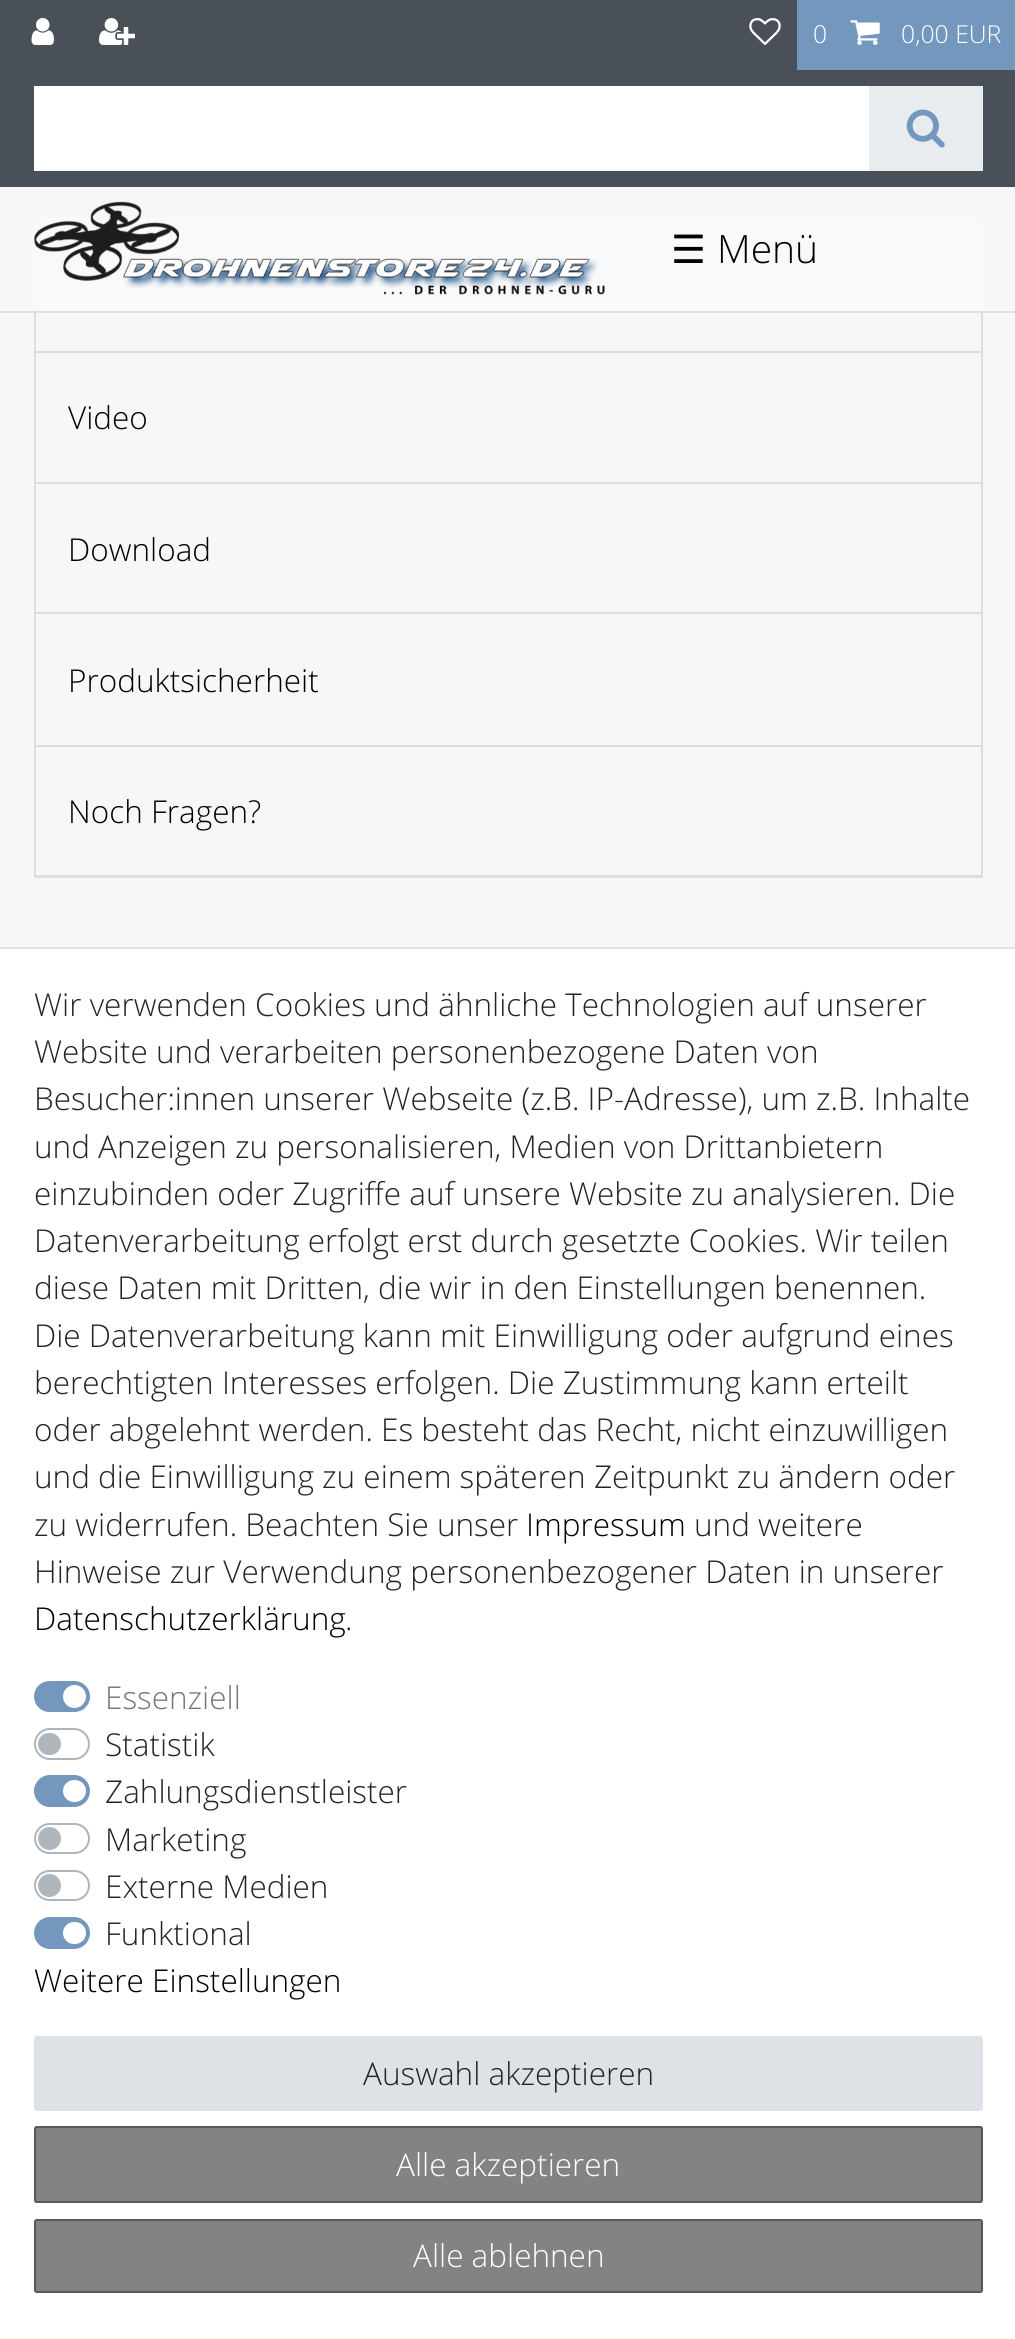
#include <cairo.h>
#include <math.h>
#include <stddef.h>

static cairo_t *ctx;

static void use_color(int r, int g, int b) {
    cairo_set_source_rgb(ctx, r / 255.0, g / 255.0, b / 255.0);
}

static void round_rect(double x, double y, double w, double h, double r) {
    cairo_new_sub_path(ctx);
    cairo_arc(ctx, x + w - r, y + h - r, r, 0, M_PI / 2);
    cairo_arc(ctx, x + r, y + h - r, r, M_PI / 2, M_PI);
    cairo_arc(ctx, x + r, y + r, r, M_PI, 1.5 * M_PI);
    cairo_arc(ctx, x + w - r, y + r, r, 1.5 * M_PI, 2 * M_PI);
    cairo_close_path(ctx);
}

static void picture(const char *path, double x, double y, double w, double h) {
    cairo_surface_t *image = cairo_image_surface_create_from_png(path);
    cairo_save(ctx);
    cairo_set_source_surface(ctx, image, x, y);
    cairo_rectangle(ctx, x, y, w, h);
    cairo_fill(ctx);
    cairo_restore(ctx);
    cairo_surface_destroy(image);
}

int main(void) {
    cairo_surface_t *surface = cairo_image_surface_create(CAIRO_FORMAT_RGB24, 1015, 2339);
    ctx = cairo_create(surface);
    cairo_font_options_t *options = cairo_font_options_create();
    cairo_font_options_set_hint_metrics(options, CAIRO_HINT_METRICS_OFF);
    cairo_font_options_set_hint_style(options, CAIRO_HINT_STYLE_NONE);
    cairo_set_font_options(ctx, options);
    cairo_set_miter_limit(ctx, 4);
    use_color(247, 247, 249);
    cairo_paint(ctx);
    use_color(73, 80, 87);
    cairo_rectangle(ctx, 0, 0, 1015, 187);
    cairo_fill(ctx);
    picture("img1.png", 31, 18, 23, 27);
    picture("img2.png", 99, 18, 36, 27);
    picture("img3.png", 749, 18, 32, 27);
    use_color(116, 151, 189);
    cairo_rectangle(ctx, 797, 0, 218, 70);
    cairo_fill(ctx);
    cairo_select_font_face(ctx, "Open Sans Light", CAIRO_FONT_SLANT_NORMAL, CAIRO_FONT_WEIGHT_NORMAL);
    cairo_set_font_size(ctx, 24.75);
    use_color(255, 255, 255);
    cairo_move_to(ctx, 813, 43);
    cairo_show_text(ctx, "0");
    picture("img4.png", 850, 20, 30, 25);
    cairo_move_to(ctx, 901, 43);
    cairo_show_text(ctx, "0,00 EUR");
    cairo_rectangle(ctx, 34, 86, 835, 85);
    cairo_fill(ctx);
    use_color(233, 236, 239);
    cairo_rectangle(ctx, 869, 86, 114, 85);
    cairo_fill(ctx);
    picture("img5.png", 906, 109, 39, 39);
    cairo_rectangle(ctx, 35, 219, 947, 133);
    use_color(221, 221, 221);
    cairo_stroke(ctx);
    use_color(248, 249, 250);
    cairo_rectangle(ctx, 34, 218, 949, 93);
    cairo_fill(ctx);
    use_color(222, 226, 230);
    cairo_rectangle(ctx, 0, 311, 1015, 2);
    cairo_fill(ctx);
    picture("img6.png", 34, 201, 571, 94);
    cairo_select_font_face(ctx, "DejaVu Sans", CAIRO_FONT_SLANT_NORMAL, CAIRO_FONT_WEIGHT_NORMAL);
    cairo_set_font_size(ctx, 39);
    use_color(0, 0, 0);
    cairo_move_to(ctx, 671, 263);
    cairo_show_text(ctx, "☰");
    cairo_select_font_face(ctx, "Open Sans Light", CAIRO_FONT_SLANT_NORMAL, CAIRO_FONT_WEIGHT_NORMAL);
    cairo_move_to(ctx, 717, 263);
    cairo_show_text(ctx, "Menü");
    use_color(221, 221, 221);
    cairo_rectangle(ctx, 34, 875, 949, 1);
    cairo_fill(ctx);
    cairo_new_path(ctx);
    cairo_move_to(ctx, 37, 352);
    cairo_line_to(ctx, 980, 352);
    cairo_curve_to(ctx, 981, 352, 982, 353, 982, 354);
    cairo_line_to(ctx, 982, 483);
    cairo_line_to(ctx, 35, 483);
    cairo_line_to(ctx, 35, 354);
    cairo_curve_to(ctx, 35, 353, 36, 352, 37, 352);
    cairo_close_path(ctx);
    cairo_stroke(ctx);
    cairo_set_font_size(ctx, 31.5);
    use_color(0, 0, 0);
    cairo_move_to(ctx, 68, 429);
    cairo_show_text(ctx, "Video");
    cairo_new_path(ctx);
    cairo_move_to(ctx, 37, 483);
    cairo_line_to(ctx, 980, 483);
    cairo_curve_to(ctx, 981, 483, 982, 484, 982, 485);
    cairo_line_to(ctx, 982, 613);
    cairo_line_to(ctx, 35, 613);
    cairo_line_to(ctx, 35, 485);
    cairo_curve_to(ctx, 35, 484, 36, 483, 37, 483);
    cairo_close_path(ctx);
    use_color(221, 221, 221);
    cairo_stroke(ctx);
    use_color(0, 0, 0);
    cairo_move_to(ctx, 68, 561);
    cairo_show_text(ctx, "Download");
    cairo_new_path(ctx);
    cairo_move_to(ctx, 37, 613);
    cairo_line_to(ctx, 980, 613);
    cairo_curve_to(ctx, 981, 613, 982, 614, 982, 615);
    cairo_line_to(ctx, 982, 746);
    cairo_line_to(ctx, 35, 746);
    cairo_line_to(ctx, 35, 615);
    cairo_curve_to(ctx, 35, 614, 36, 613, 37, 613);
    cairo_close_path(ctx);
    use_color(221, 221, 221);
    cairo_stroke(ctx);
    use_color(0, 0, 0);
    cairo_move_to(ctx, 68, 692);
    cairo_show_text(ctx, "Produktsicherheit");
    cairo_new_path(ctx);
    cairo_move_to(ctx, 37, 746);
    cairo_line_to(ctx, 980, 746);
    cairo_curve_to(ctx, 981, 746, 982, 747, 982, 748);
    cairo_line_to(ctx, 982, 877);
    cairo_line_to(ctx, 35, 877);
    cairo_line_to(ctx, 35, 748);
    cairo_curve_to(ctx, 35, 747, 36, 746, 37, 746);
    cairo_close_path(ctx);
    use_color(221, 221, 221);
    cairo_stroke(ctx);
    use_color(0, 0, 0);
    cairo_move_to(ctx, 68, 823);
    cairo_show_text(ctx, "Noch Fragen?");
    use_color(255, 255, 255);
    cairo_rectangle(ctx, 0, 949, 1015, 1390);
    cairo_fill(ctx);
    use_color(222, 226, 230);
    cairo_rectangle(ctx, 0, 947, 1015, 2);
    cairo_fill(ctx);
    use_color(33, 37, 41);
    cairo_move_to(ctx, 34, 1016);
    cairo_show_text(ctx, "Wir verwenden Cookies und ähnliche Technologien auf unserer");
    cairo_move_to(ctx, 34, 1063);
    cairo_show_text(ctx, "Website und verarbeiten personenbezogene Daten von");
    cairo_move_to(ctx, 34, 1110);
    cairo_show_text(ctx, "Besucher:innen unserer Webseite (z.B. IP-Adresse), um z.B. Inhalte");
    cairo_move_to(ctx, 34, 1158);
    cairo_show_text(ctx, "und Anzeigen zu personalisieren, Medien von Drittanbietern");
    cairo_move_to(ctx, 34, 1205);
    cairo_show_text(ctx, "einzubinden oder Zugriffe auf unsere Website zu analysieren. Die");
    cairo_move_to(ctx, 34, 1252);
    cairo_show_text(ctx, "Datenverarbeitung erfolgt erst durch gesetzte Cookies. Wir teilen");
    cairo_move_to(ctx, 34, 1299);
    cairo_show_text(ctx, "diese Daten mit Dritten, die wir in den Einstellungen benennen.");
    cairo_move_to(ctx, 34, 1347);
    cairo_show_text(ctx, "Die Datenverarbeitung kann mit Einwilligung oder aufgrund eines");
    cairo_move_to(ctx, 34, 1394);
    cairo_show_text(ctx, "berechtigten Interesses erfolgen. Die Zustimmung kann erteilt");
    cairo_move_to(ctx, 34, 1441);
    cairo_show_text(ctx, "oder abgelehnt werden. Es besteht das Recht, nicht einzuwilligen");
    cairo_move_to(ctx, 34, 1488);
    cairo_show_text(ctx, "und die Einwilligung zu einem späteren Zeitpunkt zu ändern oder");
    cairo_move_to(ctx, 34, 1536);
    cairo_show_text(ctx, "zu widerrufen. Beachten Sie unser");
    use_color(0, 0, 0);
    cairo_move_to(ctx, 526, 1536);
    cairo_show_text(ctx, "Impressum");
    use_color(33, 37, 41);
    cairo_move_to(ctx, 694, 1536);
    cairo_show_text(ctx, "und weitere");
    cairo_move_to(ctx, 34, 1583);
    cairo_show_text(ctx, "Hinweise zur Verwendung personenbezogener Daten in unserer");
    use_color(0, 0, 0);
    cairo_move_to(ctx, 34, 1630);
    cairo_show_text(ctx, "Datenschutzerklärung");
    use_color(33, 37, 41);
    cairo_move_to(ctx, 345, 1630);
    cairo_show_text(ctx, ".");
    use_color(116, 151, 189);
    round_rect(35, 1682, 54, 29, 14.5);
    cairo_fill_preserve(ctx);
    cairo_stroke(ctx);
    use_color(255, 255, 255);
    cairo_arc(ctx, 74.5, 1696.5, 11.5, 0, 2 * M_PI);
    cairo_fill(ctx);
    use_color(118, 118, 118);
    cairo_move_to(ctx, 105, 1709);
    cairo_show_text(ctx, "Essenziell");
    round_rect(35, 1729, 54, 30, 15);
    use_color(173, 181, 189);
    cairo_stroke(ctx);
    use_color(33, 37, 41);
    cairo_move_to(ctx, 105, 1756);
    cairo_show_text(ctx, "Statistik");
    use_color(173, 181, 189);
    round_rect(38, 1733, 23, 22, 11);
    cairo_fill(ctx);
    use_color(116, 151, 189);
    round_rect(35, 1776, 54, 30, 15);
    cairo_fill_preserve(ctx);
    cairo_stroke(ctx);
    use_color(33, 37, 41);
    cairo_move_to(ctx, 105, 1803);
    cairo_show_text(ctx, "Zahlungsdienstleister");
    use_color(255, 255, 255);
    round_rect(63, 1780, 23, 22, 11);
    cairo_fill(ctx);
    round_rect(35, 1824, 54, 29, 14.5);
    use_color(173, 181, 189);
    cairo_stroke(ctx);
    cairo_arc(ctx, 49.5, 1838.5, 11.5, 0, 2 * M_PI);
    cairo_fill(ctx);
    use_color(33, 37, 41);
    cairo_move_to(ctx, 105, 1851);
    cairo_show_text(ctx, "Marketing");
    round_rect(35, 1871, 54, 29, 14.5);
    use_color(173, 181, 189);
    cairo_stroke(ctx);
    cairo_arc(ctx, 49.5, 1885.5, 11.5, 0, 2 * M_PI);
    cairo_fill(ctx);
    use_color(33, 37, 41);
    cairo_move_to(ctx, 105, 1898);
    cairo_show_text(ctx, "Externe Medien");
    use_color(116, 151, 189);
    round_rect(35, 1918, 54, 30, 15);
    cairo_fill_preserve(ctx);
    cairo_stroke(ctx);
    use_color(33, 37, 41);
    cairo_move_to(ctx, 105, 1945);
    cairo_show_text(ctx, "Funktional");
    use_color(255, 255, 255);
    round_rect(63, 1922, 23, 22, 11);
    cairo_fill(ctx);
    use_color(0, 0, 0);
    cairo_move_to(ctx, 34, 1992);
    cairo_show_text(ctx, "Weitere Einstellungen");
    use_color(222, 226, 230);
    round_rect(35, 2037, 947, 73, 2);
    cairo_fill_preserve(ctx);
    cairo_stroke(ctx);
    use_color(33, 37, 41);
    cairo_move_to(ctx, 363, 2085);
    cairo_show_text(ctx, "Auswahl akzeptieren");
    use_color(130, 132, 130);
    round_rect(34, 2126, 949, 77, 3);
    cairo_fill(ctx);
    round_rect(35, 2127, 947, 75, 2);
    cairo_set_source_rgba(ctx, 0.302, 0.31, 0.302, 0.8);
    cairo_stroke(ctx);
    use_color(255, 255, 255);
    cairo_move_to(ctx, 396, 2176);
    cairo_show_text(ctx, "Alle akzeptieren");
    use_color(130, 132, 130);
    round_rect(34, 2219, 949, 74, 3);
    cairo_fill(ctx);
    round_rect(35, 2220, 947, 72, 2);
    cairo_set_source_rgba(ctx, 0.302, 0.31, 0.302, 0.8);
    cairo_stroke(ctx);
    use_color(255, 255, 255);
    cairo_move_to(ctx, 413, 2267);
    cairo_show_text(ctx, "Alle ablehnen");
    cairo_surface_write_to_png(surface, "result.png");
    cairo_font_options_destroy(options);
    cairo_destroy(ctx);
    cairo_surface_destroy(surface);
    return 0;
}
